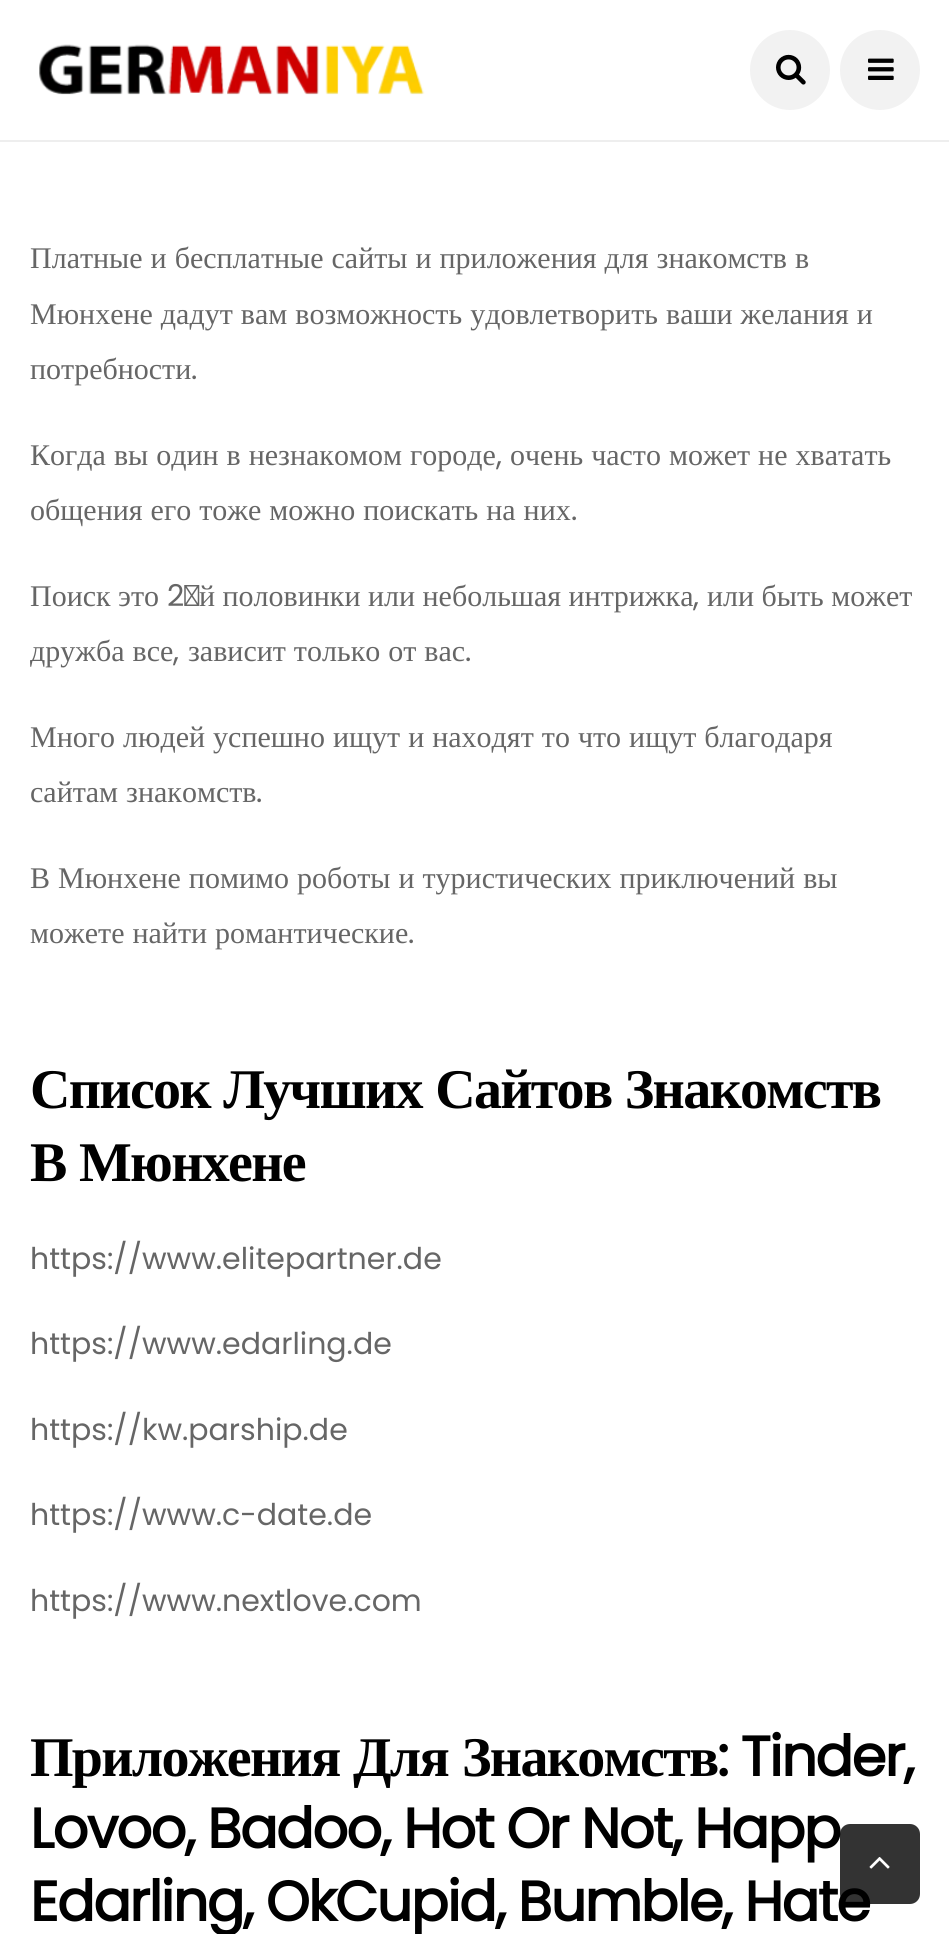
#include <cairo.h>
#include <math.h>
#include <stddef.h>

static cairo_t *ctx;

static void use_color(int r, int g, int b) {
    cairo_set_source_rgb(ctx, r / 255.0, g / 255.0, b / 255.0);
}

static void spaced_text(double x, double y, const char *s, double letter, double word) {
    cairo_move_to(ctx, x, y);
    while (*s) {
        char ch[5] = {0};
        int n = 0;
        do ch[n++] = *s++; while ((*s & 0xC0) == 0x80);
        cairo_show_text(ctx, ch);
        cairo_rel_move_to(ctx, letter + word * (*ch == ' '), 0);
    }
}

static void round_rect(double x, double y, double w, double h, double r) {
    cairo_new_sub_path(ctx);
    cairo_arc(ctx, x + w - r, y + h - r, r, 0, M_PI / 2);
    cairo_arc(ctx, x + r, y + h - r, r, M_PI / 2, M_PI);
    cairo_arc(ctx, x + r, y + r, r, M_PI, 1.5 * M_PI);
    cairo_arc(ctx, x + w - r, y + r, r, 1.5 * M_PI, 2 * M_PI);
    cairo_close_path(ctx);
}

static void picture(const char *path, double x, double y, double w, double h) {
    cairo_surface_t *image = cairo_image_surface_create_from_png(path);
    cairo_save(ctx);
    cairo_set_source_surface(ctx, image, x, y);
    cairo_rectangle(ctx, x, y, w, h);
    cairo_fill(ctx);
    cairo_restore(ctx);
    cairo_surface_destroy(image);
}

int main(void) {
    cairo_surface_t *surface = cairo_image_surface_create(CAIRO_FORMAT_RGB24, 949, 1934);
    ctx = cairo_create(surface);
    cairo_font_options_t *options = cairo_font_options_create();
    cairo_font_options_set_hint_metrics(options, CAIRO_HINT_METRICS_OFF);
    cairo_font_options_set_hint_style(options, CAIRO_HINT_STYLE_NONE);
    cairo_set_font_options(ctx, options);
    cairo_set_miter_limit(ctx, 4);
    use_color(255, 255, 255);
    cairo_paint(ctx);
    use_color(238, 238, 238);
    cairo_rectangle(ctx, 0, 140, 949, 2);
    cairo_fill(ctx);
    picture("img1.png", 39, 44, 386, 51);
    use_color(242, 242, 242);
    cairo_arc(ctx, 790, 70, 40, 0, 2 * M_PI);
    cairo_fill(ctx);
    picture("img2.png", 776, 54, 30, 31);
    cairo_arc(ctx, 880, 70, 40, 0, 2 * M_PI);
    cairo_fill(ctx);
    picture("img3.png", 868, 58, 26, 22);
    cairo_select_font_face(ctx, "Liberation Serif", CAIRO_FONT_SLANT_NORMAL, CAIRO_FONT_WEIGHT_NORMAL);
    cairo_set_font_size(ctx, 30);
    use_color(102, 102, 102);
    spaced_text(30, 268, "Платные и бесплатные сайты и приложения для знакомств в", 0, 0.5);
    spaced_text(30, 324, "Мюнхене дадут вам возможность удовлетворить ваши желания и", 0, 0.5);
    cairo_move_to(ctx, 30, 379);
    cairo_show_text(ctx, "потребности");
    cairo_select_font_face(ctx, "Poppins", CAIRO_FONT_SLANT_NORMAL, CAIRO_FONT_WEIGHT_NORMAL);
    cairo_move_to(ctx, 191, 379);
    cairo_show_text(ctx, ".");
    cairo_select_font_face(ctx, "Liberation Serif", CAIRO_FONT_SLANT_NORMAL, CAIRO_FONT_WEIGHT_NORMAL);
    spaced_text(30, 465, "Когда вы один в незнакомом городе", 0, 0.5);
    cairo_select_font_face(ctx, "Poppins", CAIRO_FONT_SLANT_NORMAL, CAIRO_FONT_WEIGHT_NORMAL);
    cairo_move_to(ctx, 496, 465);
    cairo_show_text(ctx, ",");
    cairo_select_font_face(ctx, "Liberation Serif", CAIRO_FONT_SLANT_NORMAL, CAIRO_FONT_WEIGHT_NORMAL);
    spaced_text(510, 465, "очень часто может не хватать", 0, 0.5);
    spaced_text(30, 520, "общения его тоже можно поискать на них", 0, 0.5);
    cairo_select_font_face(ctx, "Poppins", CAIRO_FONT_SLANT_NORMAL, CAIRO_FONT_WEIGHT_NORMAL);
    cairo_move_to(ctx, 571, 520);
    cairo_show_text(ctx, ".");
    cairo_select_font_face(ctx, "Liberation Serif", CAIRO_FONT_SLANT_NORMAL, CAIRO_FONT_WEIGHT_NORMAL);
    cairo_move_to(ctx, 30, 606);
    cairo_show_text(ctx, "Поиск это");
    cairo_select_font_face(ctx, "Poppins", CAIRO_FONT_SLANT_NORMAL, CAIRO_FONT_WEIGHT_NORMAL);
    cairo_move_to(ctx, 167, 606);
    cairo_show_text(ctx, "2‑");
    cairo_select_font_face(ctx, "Liberation Serif", CAIRO_FONT_SLANT_NORMAL, CAIRO_FONT_WEIGHT_NORMAL);
    cairo_move_to(ctx, 199, 606);
    cairo_show_text(ctx, "й половинки или небольшая интрижка");
    cairo_select_font_face(ctx, "Poppins", CAIRO_FONT_SLANT_NORMAL, CAIRO_FONT_WEIGHT_NORMAL);
    cairo_move_to(ctx, 693, 606);
    cairo_show_text(ctx, ",");
    cairo_select_font_face(ctx, "Liberation Serif", CAIRO_FONT_SLANT_NORMAL, CAIRO_FONT_WEIGHT_NORMAL);
    cairo_move_to(ctx, 707, 606);
    cairo_show_text(ctx, "или быть может");
    spaced_text(30, 661, "дружба все", 0, 0.5);
    cairo_select_font_face(ctx, "Poppins", CAIRO_FONT_SLANT_NORMAL, CAIRO_FONT_WEIGHT_NORMAL);
    cairo_move_to(ctx, 173, 661);
    cairo_show_text(ctx, ",");
    cairo_select_font_face(ctx, "Liberation Serif", CAIRO_FONT_SLANT_NORMAL, CAIRO_FONT_WEIGHT_NORMAL);
    spaced_text(188, 661, "зависит только от вас", 0, 0.5);
    cairo_select_font_face(ctx, "Poppins", CAIRO_FONT_SLANT_NORMAL, CAIRO_FONT_WEIGHT_NORMAL);
    cairo_move_to(ctx, 465, 661);
    cairo_show_text(ctx, ".");
    cairo_select_font_face(ctx, "Liberation Serif", CAIRO_FONT_SLANT_NORMAL, CAIRO_FONT_WEIGHT_NORMAL);
    spaced_text(30, 747, "Много людей успешно ищут и находят то что ищут благодаря", 0, 0.5);
    spaced_text(30, 802, "сайтам знакомств", 0, 0.5);
    cairo_select_font_face(ctx, "Poppins", CAIRO_FONT_SLANT_NORMAL, CAIRO_FONT_WEIGHT_NORMAL);
    cairo_move_to(ctx, 256, 802);
    cairo_show_text(ctx, ".");
    cairo_select_font_face(ctx, "Liberation Serif", CAIRO_FONT_SLANT_NORMAL, CAIRO_FONT_WEIGHT_NORMAL);
    spaced_text(30, 888, "В Мюнхене помимо роботы и туристических приключений вы", 0, 0.5);
    spaced_text(30, 943, "можете найти романтические", 0, 0.5);
    cairo_select_font_face(ctx, "Poppins", CAIRO_FONT_SLANT_NORMAL, CAIRO_FONT_WEIGHT_NORMAL);
    cairo_move_to(ctx, 408, 943);
    cairo_show_text(ctx, ".");
    cairo_select_font_face(ctx, "Liberation Serif", CAIRO_FONT_SLANT_NORMAL, CAIRO_FONT_WEIGHT_BOLD);
    cairo_set_font_size(ctx, 56);
    use_color(0, 0, 0);
    spaced_text(30, 1108, "Список Лучших Сайтов Знакомств", -1.7, 1);
    spaced_text(30, 1181, "В Мюнхене", -1.7, 1);
    cairo_select_font_face(ctx, "Poppins", CAIRO_FONT_SLANT_NORMAL, CAIRO_FONT_WEIGHT_NORMAL);
    cairo_set_font_size(ctx, 30);
    use_color(102, 102, 102);
    cairo_move_to(ctx, 30, 1269);
    cairo_show_text(ctx, "https://www.elitepartner.de");
    cairo_move_to(ctx, 30, 1354);
    cairo_show_text(ctx, "https://www.edarling.de");
    cairo_move_to(ctx, 30, 1440);
    cairo_show_text(ctx, "https://kw.parship.de");
    cairo_move_to(ctx, 30, 1525);
    cairo_show_text(ctx, "https://www.c-date.de");
    cairo_move_to(ctx, 30, 1611);
    cairo_show_text(ctx, "https://www.nextlove.com");
    cairo_select_font_face(ctx, "Liberation Serif", CAIRO_FONT_SLANT_NORMAL, CAIRO_FONT_WEIGHT_BOLD);
    cairo_set_font_size(ctx, 56);
    use_color(0, 0, 0);
    spaced_text(30, 1776, "Приложения", -1.7, 0);
    spaced_text(353, 1776, "Для", -1.7, 0);
    spaced_text(462, 1776, "Знакомств", -1.7, 0);
    cairo_select_font_face(ctx, "Poppins", CAIRO_FONT_SLANT_NORMAL, CAIRO_FONT_WEIGHT_BOLD);
    spaced_text(717, 1776, ": Tinder,", -1.7, 0);
    spaced_text(30, 1848, "Lovoo, Badoo, Hot Or Not, Happ", -1.7, 0);
    spaced_text(30, 1921, "Edarling, OkCupid, Bumble, Hate", -1.7, 0);
    cairo_set_source_rgba(ctx, 0, 0, 0, 0.8);
    round_rect(840, 1824, 80, 80, 10);
    cairo_fill(ctx);
    picture("img4.png", 869, 1857, 21, 12);
    cairo_surface_write_to_png(surface, "result.png");
    cairo_font_options_destroy(options);
    cairo_destroy(ctx);
    cairo_surface_destroy(surface);
    return 0;
}
